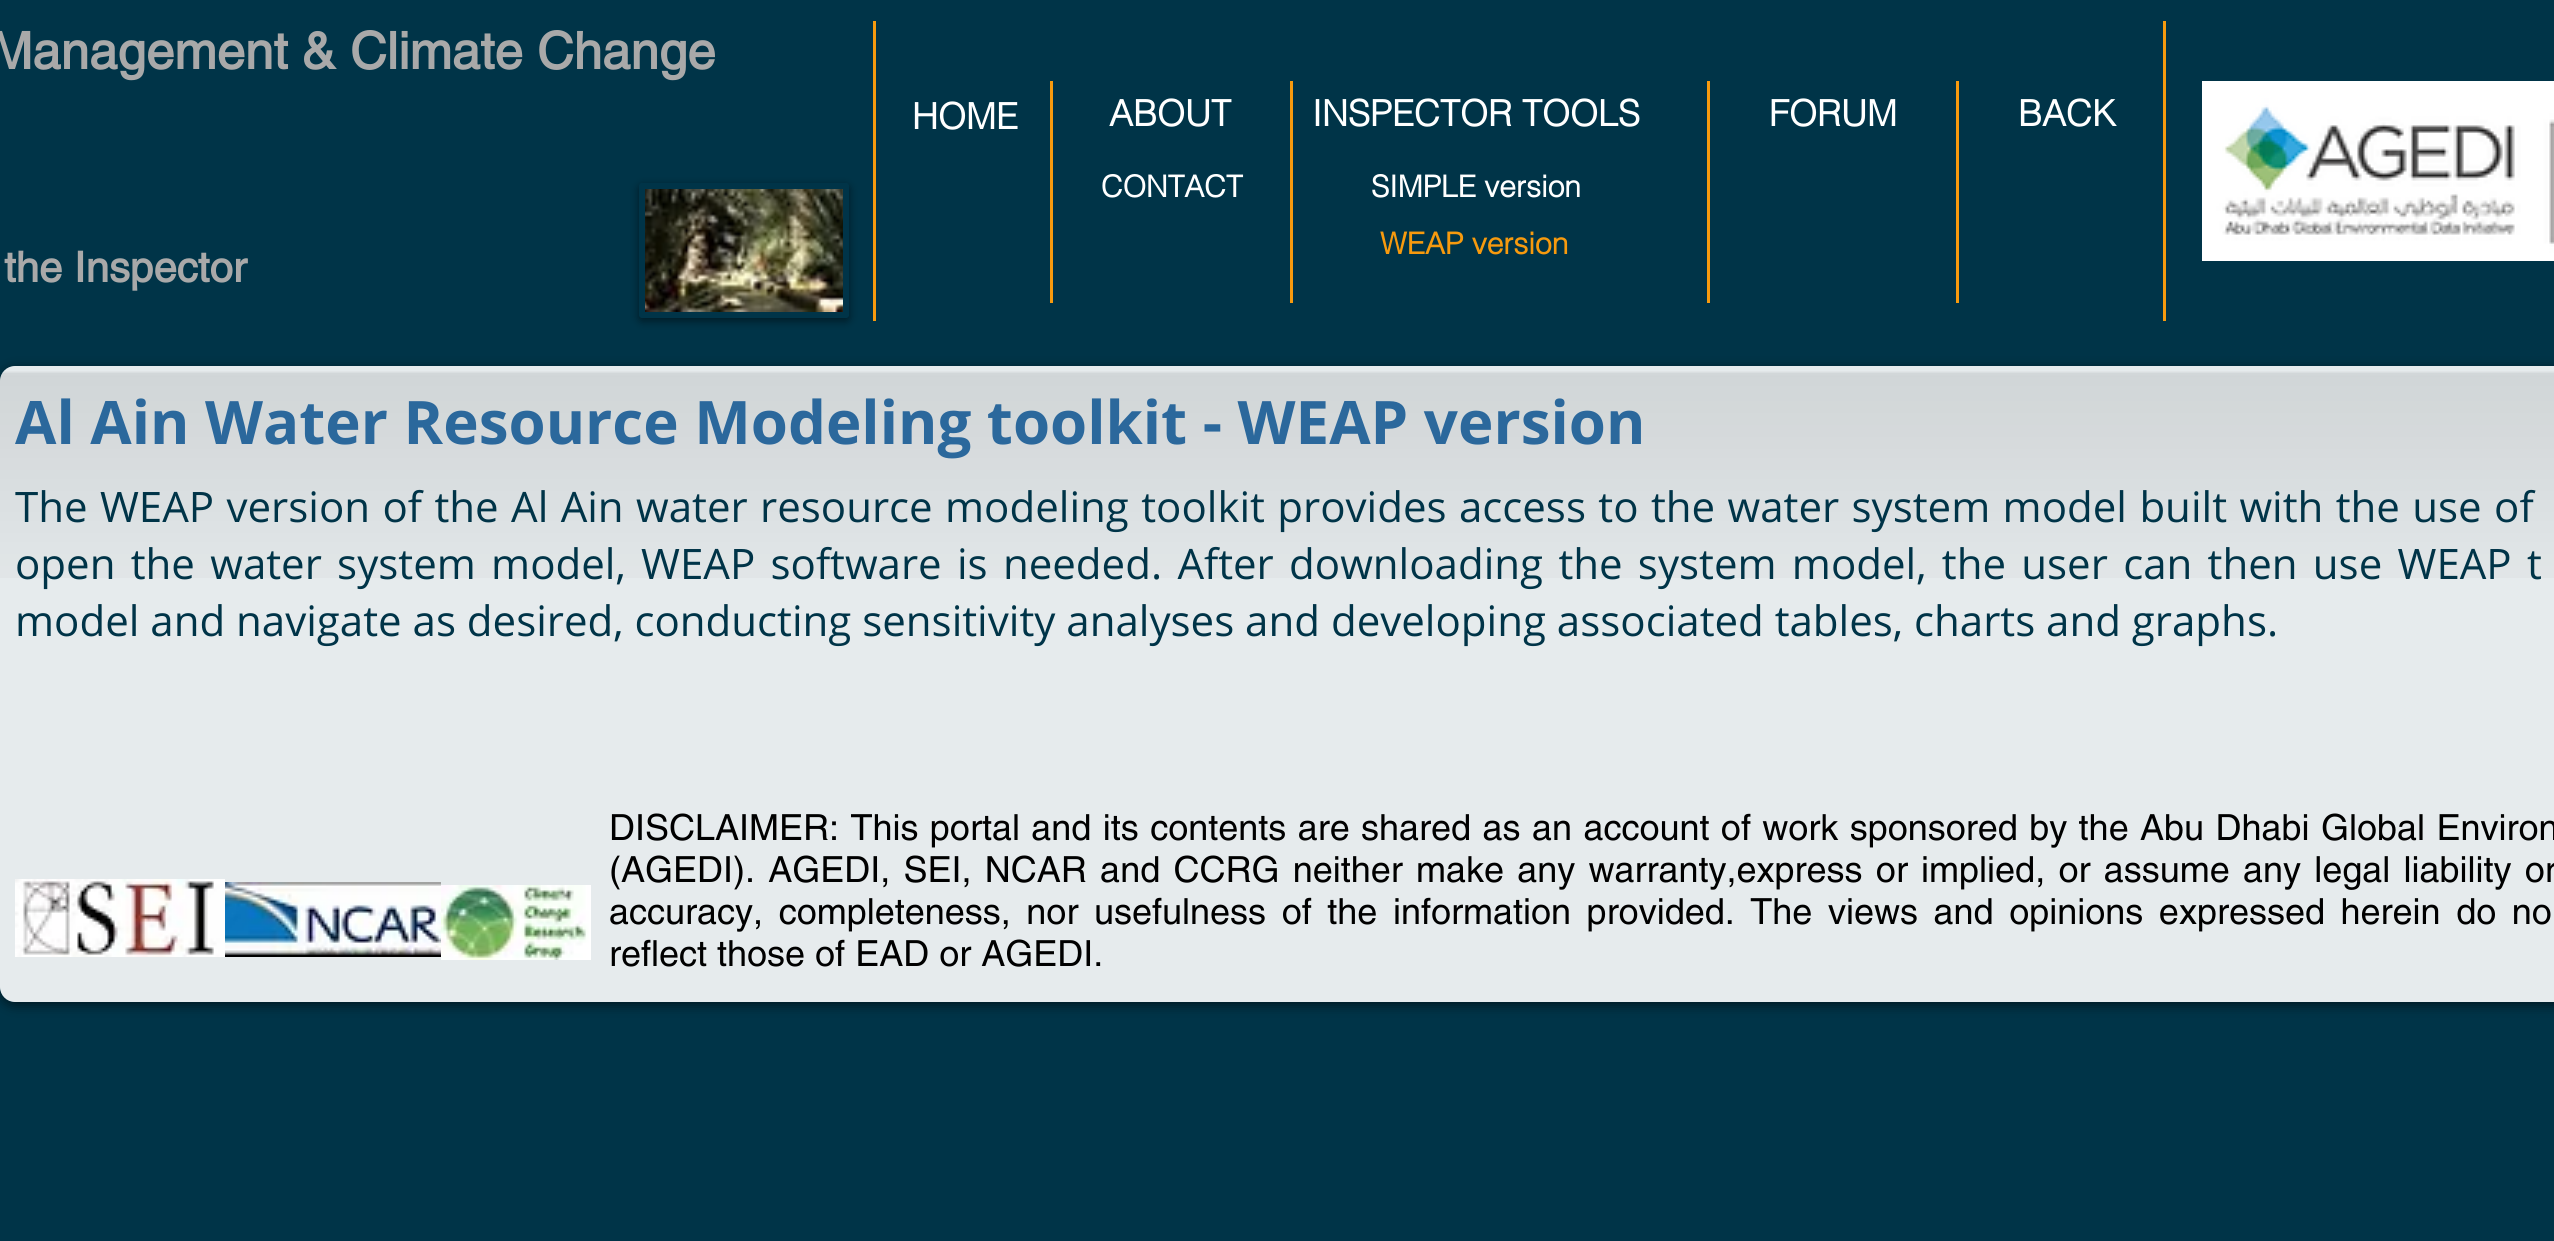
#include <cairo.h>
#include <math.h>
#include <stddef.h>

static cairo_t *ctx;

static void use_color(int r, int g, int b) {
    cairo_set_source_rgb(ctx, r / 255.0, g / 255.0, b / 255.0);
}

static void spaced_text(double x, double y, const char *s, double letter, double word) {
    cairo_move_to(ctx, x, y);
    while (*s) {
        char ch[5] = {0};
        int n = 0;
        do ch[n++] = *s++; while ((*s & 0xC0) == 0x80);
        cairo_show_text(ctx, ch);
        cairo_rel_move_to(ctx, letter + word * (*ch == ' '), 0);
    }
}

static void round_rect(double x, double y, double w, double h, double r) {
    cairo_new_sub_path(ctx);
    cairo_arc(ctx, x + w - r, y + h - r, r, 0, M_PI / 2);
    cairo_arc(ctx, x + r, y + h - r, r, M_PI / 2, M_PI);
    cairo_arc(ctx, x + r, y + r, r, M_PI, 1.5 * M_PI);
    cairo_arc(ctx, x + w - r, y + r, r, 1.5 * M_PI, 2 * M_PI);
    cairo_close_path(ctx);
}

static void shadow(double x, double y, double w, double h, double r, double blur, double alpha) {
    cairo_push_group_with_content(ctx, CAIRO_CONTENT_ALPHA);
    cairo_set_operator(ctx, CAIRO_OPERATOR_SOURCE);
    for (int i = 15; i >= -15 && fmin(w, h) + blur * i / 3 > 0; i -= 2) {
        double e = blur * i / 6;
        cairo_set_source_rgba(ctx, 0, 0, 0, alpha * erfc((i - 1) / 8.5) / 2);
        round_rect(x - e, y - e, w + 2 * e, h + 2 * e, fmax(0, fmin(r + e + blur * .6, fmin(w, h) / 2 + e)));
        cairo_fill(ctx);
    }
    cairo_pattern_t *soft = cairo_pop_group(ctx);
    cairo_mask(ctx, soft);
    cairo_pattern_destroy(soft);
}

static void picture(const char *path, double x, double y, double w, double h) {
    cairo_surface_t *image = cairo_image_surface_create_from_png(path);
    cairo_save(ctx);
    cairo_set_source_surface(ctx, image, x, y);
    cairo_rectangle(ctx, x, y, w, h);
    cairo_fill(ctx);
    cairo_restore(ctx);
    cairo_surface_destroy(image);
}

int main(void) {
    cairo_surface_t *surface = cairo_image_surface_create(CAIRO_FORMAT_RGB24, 2554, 1241);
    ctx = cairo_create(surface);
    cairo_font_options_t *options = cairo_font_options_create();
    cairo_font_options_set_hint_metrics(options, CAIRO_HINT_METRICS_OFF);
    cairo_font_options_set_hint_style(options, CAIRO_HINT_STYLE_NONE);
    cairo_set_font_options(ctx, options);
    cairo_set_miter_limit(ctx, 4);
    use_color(0, 52, 72);
    cairo_paint(ctx);
    cairo_select_font_face(ctx, "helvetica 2", CAIRO_FONT_SLANT_NORMAL, CAIRO_FONT_WEIGHT_BOLD);
    cairo_set_font_size(ctx, 51);
    use_color(169, 169, 169);
    cairo_move_to(ctx, -10, 69);
    cairo_show_text(ctx, "Management & Climate Change");
    cairo_set_font_size(ctx, 42);
    cairo_move_to(ctx, 4, 282);
    cairo_show_text(ctx, "the Inspector");
    cairo_save(ctx);
    cairo_set_fill_rule(ctx, CAIRO_FILL_RULE_EVEN_ODD);
    cairo_new_path(ctx);
    cairo_move_to(ctx, 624, 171);
    cairo_line_to(ctx, 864, 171);
    cairo_line_to(ctx, 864, 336);
    cairo_line_to(ctx, 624, 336);
    cairo_close_path(ctx);
    cairo_move_to(ctx, 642, 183);
    cairo_line_to(ctx, 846, 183);
    cairo_curve_to(ctx, 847.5, 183, 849, 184.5, 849, 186);
    cairo_line_to(ctx, 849, 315);
    cairo_curve_to(ctx, 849, 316.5, 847.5, 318, 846, 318);
    cairo_line_to(ctx, 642, 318);
    cairo_curve_to(ctx, 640.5, 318, 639, 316.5, 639, 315);
    cairo_line_to(ctx, 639, 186);
    cairo_curve_to(ctx, 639, 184.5, 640.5, 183, 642, 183);
    cairo_close_path(ctx);
    cairo_clip(ctx);
    use_color(0, 0, 0);
    shadow(639, 186, 210, 135, 3, 4.5, 0.5);
    cairo_restore(ctx);
    picture("img1.png", 645, 189, 198, 123);
    use_color(247, 154, 14);
    cairo_rectangle(ctx, 873, 21, 3, 300);
    cairo_fill(ctx);
    cairo_select_font_face(ctx, "helvetica", CAIRO_FONT_SLANT_NORMAL, CAIRO_FONT_WEIGHT_BOLD);
    cairo_set_font_size(ctx, 36);
    use_color(255, 255, 255);
    cairo_move_to(ctx, 912, 129);
    cairo_show_text(ctx, "HOME");
    use_color(247, 154, 14);
    cairo_rectangle(ctx, 1050, 81, 3, 222);
    cairo_fill(ctx);
    use_color(255, 255, 255);
    cairo_move_to(ctx, 1109, 126);
    cairo_show_text(ctx, "ABOUT");
    use_color(247, 154, 14);
    cairo_rectangle(ctx, 1290, 81, 3, 222);
    cairo_fill(ctx);
    use_color(255, 255, 255);
    cairo_move_to(ctx, 1312, 126);
    cairo_show_text(ctx, "INSPECTOR TOOLS");
    use_color(247, 154, 14);
    cairo_rectangle(ctx, 1707, 81, 3, 222);
    cairo_fill(ctx);
    use_color(255, 255, 255);
    cairo_move_to(ctx, 1769, 126);
    cairo_show_text(ctx, "FORUM");
    use_color(247, 154, 14);
    cairo_rectangle(ctx, 1956, 81, 3, 222);
    cairo_fill(ctx);
    use_color(255, 255, 255);
    cairo_move_to(ctx, 2018, 126);
    cairo_show_text(ctx, "BACK");
    use_color(247, 154, 14);
    cairo_rectangle(ctx, 2163, 21, 3, 300);
    cairo_fill(ctx);
    picture("img2.png", 2202, 81, 352, 180);
    cairo_set_font_size(ctx, 30);
    use_color(255, 255, 255);
    cairo_move_to(ctx, 1101, 197);
    cairo_show_text(ctx, "CONTACT");
    cairo_move_to(ctx, 1371, 197);
    cairo_show_text(ctx, "SIMPLE version");
    use_color(247, 154, 14);
    cairo_move_to(ctx, 1380, 254);
    cairo_show_text(ctx, "WEAP version");
    cairo_save(ctx);
    cairo_set_fill_rule(ctx, CAIRO_FILL_RULE_EVEN_ODD);
    cairo_new_path(ctx);
    cairo_move_to(ctx, 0, 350);
    cairo_line_to(ctx, 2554, 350);
    cairo_line_to(ctx, 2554, 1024);
    cairo_line_to(ctx, 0, 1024);
    cairo_close_path(ctx);
    cairo_move_to(ctx, 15, 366);
    cairo_line_to(ctx, 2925, 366);
    cairo_curve_to(ctx, 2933.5, 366, 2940, 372.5, 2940, 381);
    cairo_line_to(ctx, 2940, 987);
    cairo_curve_to(ctx, 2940, 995.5, 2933.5, 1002, 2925, 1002);
    cairo_line_to(ctx, 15, 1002);
    cairo_curve_to(ctx, 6.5, 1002, 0, 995.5, 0, 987);
    cairo_line_to(ctx, 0, 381);
    cairo_curve_to(ctx, 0, 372.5, 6.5, 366, 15, 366);
    cairo_close_path(ctx);
    cairo_clip(ctx);
    use_color(0, 0, 0);
    shadow(0, 369, 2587, 636, 15, 6, 0.6);
    cairo_restore(ctx);
    cairo_set_source_rgba(ctx, 1, 1, 1, 0.9);
    round_rect(0, 366, 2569, 636, 15);
    cairo_fill(ctx);
    picture("img3.png", 0, 371, 2554, 207);
    cairo_select_font_face(ctx, "Open Sans", CAIRO_FONT_SLANT_NORMAL, CAIRO_FONT_WEIGHT_BOLD);
    cairo_set_font_size(ctx, 60);
    use_color(43, 104, 156);
    cairo_move_to(ctx, 15, 444);
    cairo_show_text(ctx, "Al Ain Water Resource Modeling toolkit - WEAP version");
    cairo_select_font_face(ctx, "Open Sans", CAIRO_FONT_SLANT_NORMAL, CAIRO_FONT_WEIGHT_NORMAL);
    cairo_set_font_size(ctx, 42);
    use_color(0, 52, 72);
    spaced_text(15, 522, "The WEAP version of the Al Ain water resource modeling toolkit provides access to the water system model built with the use of", 0, 1.5);
    spaced_text(15, 579, "open the water system model, WEAP software is needed. After downloading the system model, the user can then use WEAP t", 0, 4.4);
    cairo_move_to(ctx, 15, 636);
    cairo_show_text(ctx, "model and navigate as desired, conducting sensitivity analyses and developing associated tables, charts and graphs.");
    picture("img4.png", 15, 879, 210, 78);
    picture("img5.png", 225, 882, 216, 75);
    picture("img6.png", 441, 885, 150, 75);
    cairo_select_font_face(ctx, "helvetica", CAIRO_FONT_SLANT_NORMAL, CAIRO_FONT_WEIGHT_NORMAL);
    cairo_set_font_size(ctx, 36);
    use_color(0, 0, 0);
    spaced_text(609, 840, "DISCLAIMER: This portal and its contents are shared as an account of work sponsored by the Abu Dhabi Global Environ", 0, 1.4);
    spaced_text(609, 882, "(AGEDI). AGEDI, SEI, NCAR and CCRG neither make any warranty,express or implied, or assume any legal liability or", 0, 3.25);
    spaced_text(609, 924, "accuracy, completeness, nor usefulness of the information provided. The views and opinions expressed herein do no", 0, 5.6);
    cairo_move_to(ctx, 609, 966);
    cairo_show_text(ctx, "reflect those of EAD or AGEDI.");
    cairo_surface_write_to_png(surface, "result.png");
    cairo_font_options_destroy(options);
    cairo_destroy(ctx);
    cairo_surface_destroy(surface);
    return 0;
}
